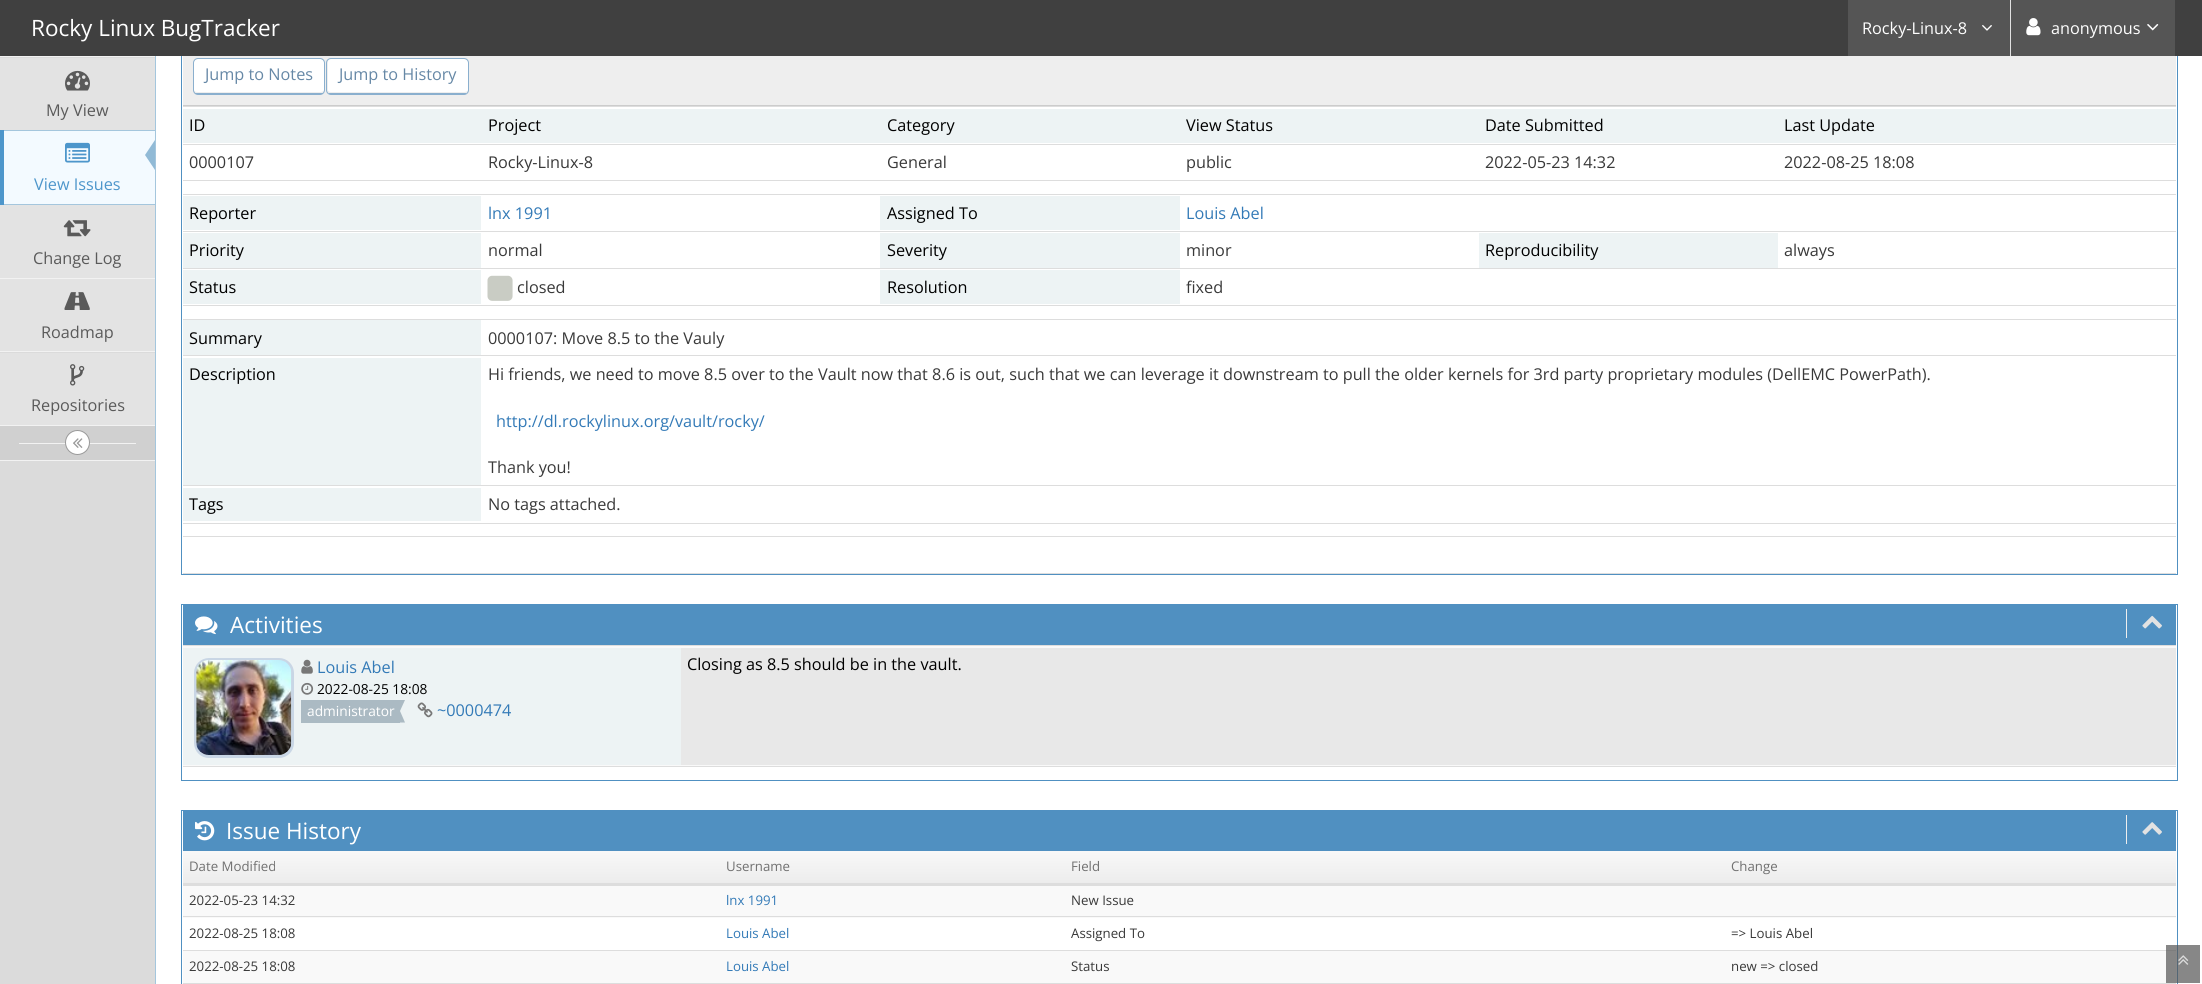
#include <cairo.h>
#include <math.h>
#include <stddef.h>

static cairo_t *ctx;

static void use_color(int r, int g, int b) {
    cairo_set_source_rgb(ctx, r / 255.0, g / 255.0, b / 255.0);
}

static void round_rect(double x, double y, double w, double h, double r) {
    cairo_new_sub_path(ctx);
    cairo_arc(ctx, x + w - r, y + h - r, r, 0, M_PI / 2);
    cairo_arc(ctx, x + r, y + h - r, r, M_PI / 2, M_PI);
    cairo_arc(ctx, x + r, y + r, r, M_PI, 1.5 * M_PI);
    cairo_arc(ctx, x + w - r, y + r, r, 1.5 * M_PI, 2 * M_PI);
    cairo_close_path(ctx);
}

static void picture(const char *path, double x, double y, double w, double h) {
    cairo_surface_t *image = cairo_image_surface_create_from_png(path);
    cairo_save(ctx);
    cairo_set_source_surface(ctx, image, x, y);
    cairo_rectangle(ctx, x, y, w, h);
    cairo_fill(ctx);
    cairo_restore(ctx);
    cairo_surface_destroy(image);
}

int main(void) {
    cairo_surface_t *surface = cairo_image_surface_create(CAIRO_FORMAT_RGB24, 2202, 984);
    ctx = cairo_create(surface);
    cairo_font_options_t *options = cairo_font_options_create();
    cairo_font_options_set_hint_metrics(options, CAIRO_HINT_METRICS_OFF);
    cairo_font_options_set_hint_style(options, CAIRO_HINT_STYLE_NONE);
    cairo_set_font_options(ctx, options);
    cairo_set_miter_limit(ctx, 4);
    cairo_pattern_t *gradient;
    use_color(255, 255, 255);
    cairo_paint(ctx);
    cairo_rectangle(ctx, 181.5, 6.5, 1996, 568);
    use_color(80, 144, 193);
    cairo_set_line_width(ctx, 1);
    cairo_stroke(ctx);
    use_color(64, 64, 64);
    cairo_rectangle(ctx, 0, 0, 2202, 56);
    cairo_fill(ctx);
    cairo_select_font_face(ctx, "Open Sans", CAIRO_FONT_SLANT_NORMAL, CAIRO_FONT_WEIGHT_NORMAL);
    cairo_set_font_size(ctx, 22.5);
    use_color(255, 255, 255);
    cairo_move_to(ctx, 31, 36);
    cairo_show_text(ctx, "Rocky Linux BugTracker");
    use_color(85, 85, 85);
    cairo_rectangle(ctx, 1848, 0, 162, 56);
    cairo_fill(ctx);
    cairo_set_font_size(ctx, 16.25);
    use_color(255, 255, 255);
    cairo_move_to(ctx, 1862, 34);
    cairo_show_text(ctx, "Rocky-Linux-8");
    picture("img1.png", 1982, 25, 10, 6);
    use_color(225, 225, 225);
    cairo_rectangle(ctx, 2010, 0, 1, 56);
    cairo_fill(ctx);
    use_color(85, 85, 85);
    cairo_rectangle(ctx, 2011, 0, 164, 56);
    cairo_fill(ctx);
    picture("img2.png", 2026, 18, 15, 18);
    use_color(255, 255, 255);
    cairo_move_to(ctx, 2051, 34);
    cairo_show_text(ctx, "anonymous");
    picture("img3.png", 2147, 24, 12, 7);
    use_color(219, 219, 219);
    cairo_rectangle(ctx, 0, 57, 155, 927);
    cairo_fill(ctx);
    use_color(164, 198, 221);
    cairo_rectangle(ctx, 155, 56, 1, 928);
    cairo_fill(ctx);
    use_color(242, 242, 242);
    cairo_rectangle(ctx, 0, 56, 155, 1);
    cairo_fill(ctx);
    use_color(227, 227, 227);
    cairo_rectangle(ctx, 0, 58, 155, 72);
    cairo_fill(ctx);
    picture("img4.png", 65, 70, 25, 21);
    use_color(90, 90, 90);
    cairo_move_to(ctx, 46, 116);
    cairo_show_text(ctx, "My View");
    use_color(164, 198, 221);
    cairo_rectangle(ctx, 0, 130, 155, 1);
    cairo_fill(ctx);
    cairo_rectangle(ctx, 0, 204, 155, 1);
    cairo_fill(ctx);
    use_color(77, 150, 203);
    cairo_rectangle(ctx, 0, 130, 4, 75);
    cairo_fill(ctx);
    use_color(243, 250, 255);
    cairo_rectangle(ctx, 4, 131, 151, 73);
    cairo_fill(ctx);
    picture("img5.png", 65, 142, 25, 21);
    use_color(145, 186, 214);
    cairo_new_path(ctx);
    cairo_move_to(ctx, 155, 140);
    cairo_line_to(ctx, 155, 170);
    cairo_line_to(ctx, 145, 155);
    cairo_close_path(ctx);
    cairo_fill(ctx);
    use_color(77, 150, 203);
    cairo_move_to(ctx, 34, 190);
    cairo_show_text(ctx, "View Issues");
    use_color(227, 227, 227);
    cairo_rectangle(ctx, 0, 205, 155, 73);
    cairo_fill(ctx);
    picture("img6.png", 63, 220, 28, 17);
    use_color(90, 90, 90);
    cairo_move_to(ctx, 33, 264);
    cairo_show_text(ctx, "Change Log");
    use_color(242, 242, 242);
    cairo_rectangle(ctx, 0, 278, 155, 1);
    cairo_fill(ctx);
    use_color(227, 227, 227);
    cairo_rectangle(ctx, 0, 279, 155, 72);
    cairo_fill(ctx);
    picture("img7.png", 64, 292, 26, 18);
    use_color(90, 90, 90);
    cairo_move_to(ctx, 41, 338);
    cairo_show_text(ctx, "Roadmap");
    use_color(242, 242, 242);
    cairo_rectangle(ctx, 0, 351, 155, 1);
    cairo_fill(ctx);
    cairo_rectangle(ctx, 0, 425, 155, 1);
    cairo_fill(ctx);
    use_color(227, 227, 227);
    cairo_rectangle(ctx, 0, 353, 155, 72);
    cairo_fill(ctx);
    picture("img8.png", 70, 364, 15, 22);
    use_color(90, 90, 90);
    cairo_move_to(ctx, 31, 411);
    cairo_show_text(ctx, "Repositories");
    use_color(208, 208, 208);
    cairo_rectangle(ctx, 0, 426, 155, 34);
    cairo_fill(ctx);
    use_color(242, 242, 242);
    cairo_rectangle(ctx, 0, 460, 155, 1);
    cairo_fill(ctx);
    cairo_rectangle(ctx, 19, 443, 117, 1);
    cairo_fill(ctx);
    use_color(255, 255, 255);
    cairo_arc(ctx, 77.5, 442.5, 12, 0, 2 * M_PI);
    cairo_fill_preserve(ctx);
    use_color(153, 153, 153);
    cairo_stroke(ctx);
    picture("img9.png", 73, 438, 10, 10);
    use_color(238, 238, 238);
    cairo_rectangle(ctx, 183, 56, 1993, 49);
    cairo_fill(ctx);
    use_color(204, 204, 204);
    cairo_rectangle(ctx, 183, 105, 1993, 1);
    cairo_fill(ctx);
    use_color(255, 255, 255);
    cairo_new_path(ctx);
    cairo_move_to(ctx, 198, 59);
    cairo_line_to(ctx, 320, 59);
    cairo_curve_to(ctx, 322, 59, 324, 60, 324, 62);
    cairo_line_to(ctx, 324, 90);
    cairo_curve_to(ctx, 324, 91, 322, 92, 320, 92);
    cairo_line_to(ctx, 198, 92);
    cairo_curve_to(ctx, 195, 92, 194, 91, 194, 90);
    cairo_line_to(ctx, 194, 62);
    cairo_curve_to(ctx, 194, 60, 195, 59, 198, 59);
    cairo_close_path(ctx);
    cairo_fill(ctx);
    round_rect(193.5, 58.5, 131, 36, 4.5);
    use_color(138, 175, 206);
    cairo_stroke(ctx);
    cairo_rectangle(ctx, 195, 93, 128, 1);
    cairo_fill(ctx);
    use_color(102, 136, 166);
    cairo_move_to(ctx, 205, 80);
    cairo_show_text(ctx, "Jump to Notes");
    use_color(255, 255, 255);
    cairo_new_path(ctx);
    cairo_move_to(ctx, 331, 59);
    cairo_line_to(ctx, 464, 59);
    cairo_curve_to(ctx, 466, 59, 468, 60, 468, 62);
    cairo_line_to(ctx, 468, 90);
    cairo_curve_to(ctx, 468, 91, 466, 92, 464, 92);
    cairo_line_to(ctx, 331, 92);
    cairo_curve_to(ctx, 329, 92, 328, 91, 328, 90);
    cairo_line_to(ctx, 328, 62);
    cairo_curve_to(ctx, 328, 60, 329, 59, 331, 59);
    cairo_close_path(ctx);
    cairo_fill(ctx);
    round_rect(326.5, 58.5, 142, 36, 4.5);
    use_color(138, 175, 206);
    cairo_stroke(ctx);
    cairo_rectangle(ctx, 329, 93, 137, 1);
    cairo_fill(ctx);
    use_color(102, 136, 166);
    cairo_move_to(ctx, 339, 80);
    cairo_show_text(ctx, "Jump to History");
    use_color(237, 243, 244);
    cairo_rectangle(ctx, 183, 109, 1993, 34);
    cairo_fill(ctx);
    use_color(0, 0, 0);
    cairo_move_to(ctx, 189, 131);
    cairo_show_text(ctx, "ID");
    cairo_move_to(ctx, 488, 131);
    cairo_show_text(ctx, "Project");
    cairo_move_to(ctx, 887, 131);
    cairo_show_text(ctx, "Category");
    cairo_move_to(ctx, 1186, 131);
    cairo_show_text(ctx, "View Status");
    cairo_move_to(ctx, 1485, 131);
    cairo_show_text(ctx, "Date Submitted");
    use_color(221, 221, 221);
    cairo_rectangle(ctx, 183, 106, 1993, 1);
    cairo_fill(ctx);
    use_color(0, 0, 0);
    cairo_move_to(ctx, 1784, 131);
    cairo_show_text(ctx, "Last Update");
    use_color(57, 57, 57);
    cairo_move_to(ctx, 189, 168);
    cairo_show_text(ctx, "0000107");
    cairo_move_to(ctx, 488, 168);
    cairo_show_text(ctx, "Rocky-Linux-8");
    cairo_move_to(ctx, 887, 168);
    cairo_show_text(ctx, "General");
    cairo_move_to(ctx, 1186, 168);
    cairo_show_text(ctx, "public");
    cairo_move_to(ctx, 1485, 168);
    cairo_show_text(ctx, "2022-05-23 14:32");
    use_color(221, 221, 221);
    cairo_rectangle(ctx, 183, 144, 1993, 1);
    cairo_fill(ctx);
    use_color(57, 57, 57);
    cairo_move_to(ctx, 1784, 168);
    cairo_show_text(ctx, "2022-08-25 18:08");
    use_color(221, 221, 221);
    cairo_rectangle(ctx, 183, 180, 1993, 1);
    cairo_fill(ctx);
    cairo_rectangle(ctx, 183, 194, 1993, 1);
    cairo_fill(ctx);
    use_color(237, 243, 244);
    cairo_rectangle(ctx, 183, 196, 298, 34);
    cairo_fill(ctx);
    use_color(0, 0, 0);
    cairo_move_to(ctx, 189, 219);
    cairo_show_text(ctx, "Reporter");
    use_color(51, 122, 183);
    cairo_move_to(ctx, 488, 219);
    cairo_show_text(ctx, "lnx 1991");
    use_color(237, 243, 244);
    cairo_rectangle(ctx, 880, 196, 300, 34);
    cairo_fill(ctx);
    use_color(0, 0, 0);
    cairo_move_to(ctx, 887, 219);
    cairo_show_text(ctx, "Assigned To");
    use_color(51, 122, 183);
    cairo_move_to(ctx, 1186, 219);
    cairo_show_text(ctx, "Louis Abel");
    use_color(237, 243, 244);
    cairo_rectangle(ctx, 183, 233, 298, 35);
    cairo_fill(ctx);
    use_color(0, 0, 0);
    cairo_move_to(ctx, 189, 256);
    cairo_show_text(ctx, "Priority");
    use_color(57, 57, 57);
    cairo_move_to(ctx, 488, 256);
    cairo_show_text(ctx, "normal");
    use_color(237, 243, 244);
    cairo_rectangle(ctx, 880, 233, 300, 35);
    cairo_fill(ctx);
    use_color(0, 0, 0);
    cairo_move_to(ctx, 887, 256);
    cairo_show_text(ctx, "Severity");
    use_color(57, 57, 57);
    cairo_move_to(ctx, 1186, 256);
    cairo_show_text(ctx, "minor");
    use_color(237, 243, 244);
    cairo_rectangle(ctx, 1479, 233, 299, 35);
    cairo_fill(ctx);
    use_color(0, 0, 0);
    cairo_move_to(ctx, 1485, 256);
    cairo_show_text(ctx, "Reproducibility");
    use_color(221, 221, 221);
    cairo_rectangle(ctx, 183, 231, 1993, 1);
    cairo_fill(ctx);
    use_color(57, 57, 57);
    cairo_move_to(ctx, 1784, 256);
    cairo_show_text(ctx, "always");
    use_color(221, 221, 221);
    cairo_rectangle(ctx, 183, 268, 1993, 1);
    cairo_fill(ctx);
    use_color(237, 243, 244);
    cairo_rectangle(ctx, 183, 270, 298, 34);
    cairo_fill(ctx);
    use_color(0, 0, 0);
    cairo_move_to(ctx, 189, 293);
    cairo_show_text(ctx, "Status");
    picture("img10.png", 487, 275, 26, 26);
    use_color(57, 57, 57);
    cairo_move_to(ctx, 517, 293);
    cairo_show_text(ctx, "closed");
    use_color(237, 243, 244);
    cairo_rectangle(ctx, 880, 270, 300, 34);
    cairo_fill(ctx);
    use_color(0, 0, 0);
    cairo_move_to(ctx, 887, 293);
    cairo_show_text(ctx, "Resolution");
    use_color(57, 57, 57);
    cairo_move_to(ctx, 1186, 293);
    cairo_show_text(ctx, "fixed");
    use_color(221, 221, 221);
    cairo_rectangle(ctx, 183, 305, 1993, 1);
    cairo_fill(ctx);
    use_color(237, 243, 244);
    cairo_rectangle(ctx, 183, 320, 298, 35);
    cairo_fill(ctx);
    use_color(0, 0, 0);
    cairo_move_to(ctx, 189, 344);
    cairo_show_text(ctx, "Summary");
    use_color(221, 221, 221);
    cairo_rectangle(ctx, 183, 319, 1993, 1);
    cairo_fill(ctx);
    use_color(57, 57, 57);
    cairo_move_to(ctx, 488, 344);
    cairo_show_text(ctx, "0000107: Move 8.5 to the Vauly");
    use_color(237, 243, 244);
    cairo_rectangle(ctx, 183, 358, 298, 127);
    cairo_fill(ctx);
    use_color(0, 0, 0);
    cairo_move_to(ctx, 189, 380);
    cairo_show_text(ctx, "Description");
    use_color(221, 221, 221);
    cairo_rectangle(ctx, 183, 355, 1993, 1);
    cairo_fill(ctx);
    use_color(57, 57, 57);
    cairo_move_to(ctx, 488, 380);
    cairo_show_text(ctx, "Hi friends, we need to move 8.5 over to the Vault now that 8.6 is out, such that we can leverage it downstream to pull the older kernels for 3rd party proprietary modules (DellEMC PowerPath).");
    use_color(51, 122, 183);
    cairo_move_to(ctx, 496, 427);
    cairo_show_text(ctx, "http://dl.rockylinux.org/vault/rocky/");
    use_color(57, 57, 57);
    cairo_move_to(ctx, 488, 473);
    cairo_show_text(ctx, "Thank you!");
    use_color(237, 243, 244);
    cairo_rectangle(ctx, 183, 488, 298, 33);
    cairo_fill(ctx);
    use_color(0, 0, 0);
    cairo_move_to(ctx, 189, 510);
    cairo_show_text(ctx, "Tags");
    use_color(221, 221, 221);
    cairo_rectangle(ctx, 183, 485, 1993, 1);
    cairo_fill(ctx);
    use_color(57, 57, 57);
    cairo_move_to(ctx, 488, 510);
    cairo_show_text(ctx, "No tags attached.");
    use_color(221, 221, 221);
    cairo_rectangle(ctx, 183, 523, 1993, 1);
    cairo_fill(ctx);
    cairo_rectangle(ctx, 183, 536, 1993, 1);
    cairo_fill(ctx);
    cairo_rectangle(ctx, 183, 573, 1993, 1);
    cairo_fill(ctx);
    cairo_rectangle(ctx, 181.5, 604.5, 1996, 176);
    use_color(80, 144, 193);
    cairo_stroke(ctx);
    cairo_rectangle(ctx, 183, 605, 1993, 40);
    cairo_fill(ctx);
    picture("img11.png", 195, 616, 23, 19);
    cairo_set_font_size(ctx, 22.5);
    use_color(255, 255, 255);
    cairo_move_to(ctx, 230, 633);
    cairo_show_text(ctx, "Activities");
    use_color(238, 238, 238);
    cairo_rectangle(ctx, 2126, 609, 1, 29);
    cairo_fill(ctx);
    picture("img12.png", 2142, 615, 20, 14);
    use_color(249, 249, 249);
    cairo_rectangle(ctx, 183, 646, 1993, 120);
    cairo_fill(ctx);
    use_color(237, 243, 244);
    cairo_rectangle(ctx, 183, 648, 498, 117);
    cairo_fill(ctx);
    round_rect(195.5, 659.5, 97, 97, 13.5);
    use_color(201, 214, 229);
    cairo_set_line_width(ctx, 3);
    cairo_stroke(ctx);
    picture("img13.png", 196, 660, 96, 95);
    picture("img14.png", 301, 659, 12, 15);
    cairo_set_font_size(ctx, 16.25);
    use_color(51, 122, 183);
    cairo_move_to(ctx, 317, 673);
    cairo_show_text(ctx, "Louis Abel");
    picture("img15.png", 301, 682, 13, 13);
    cairo_set_font_size(ctx, 13.75);
    use_color(0, 0, 0);
    cairo_move_to(ctx, 317, 694);
    cairo_show_text(ctx, "2022-08-25 18:08");
    use_color(171, 186, 195);
    cairo_rectangle(ctx, 301, 700, 99, 23);
    cairo_fill(ctx);
    use_color(255, 255, 255);
    cairo_move_to(ctx, 307, 716);
    cairo_show_text(ctx, "administrator");
    use_color(171, 186, 195);
    cairo_new_path(ctx);
    cairo_move_to(ctx, 395, 700);
    cairo_line_to(ctx, 405, 700);
    cairo_line_to(ctx, 400, 711);
    cairo_close_path(ctx);
    cairo_move_to(ctx, 405, 722.5);
    cairo_line_to(ctx, 395, 722.5);
    cairo_line_to(ctx, 400, 711);
    cairo_close_path(ctx);
    cairo_fill(ctx);
    picture("img16.png", 417, 702, 16, 16);
    cairo_set_font_size(ctx, 16.25);
    use_color(51, 122, 183);
    cairo_move_to(ctx, 437, 716);
    cairo_show_text(ctx, "~0000474");
    use_color(232, 232, 232);
    cairo_rectangle(ctx, 681, 648, 1495, 117);
    cairo_fill(ctx);
    use_color(221, 221, 221);
    cairo_rectangle(ctx, 183, 645, 1993, 1);
    cairo_fill(ctx);
    use_color(0, 0, 0);
    cairo_move_to(ctx, 687, 670);
    cairo_show_text(ctx, "Closing as 8.5 should be in the vault.");
    use_color(221, 221, 221);
    cairo_rectangle(ctx, 183, 766, 1993, 1);
    cairo_fill(ctx);
    cairo_rectangle(ctx, 181.5, 810.5, 1996, 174);
    use_color(80, 144, 193);
    cairo_set_line_width(ctx, 1);
    cairo_stroke(ctx);
    cairo_rectangle(ctx, 183, 811, 1993, 40);
    cairo_fill(ctx);
    picture("img17.png", 195, 821, 20, 20);
    cairo_set_font_size(ctx, 22.5);
    use_color(255, 255, 255);
    cairo_move_to(ctx, 226, 839);
    cairo_show_text(ctx, "Issue History");
    use_color(238, 238, 238);
    cairo_rectangle(ctx, 2126, 815, 1, 29);
    cairo_fill(ctx);
    picture("img18.png", 2142, 822, 20, 13);
    gradient = cairo_pattern_create_linear(1179, 851, 1179, 884);
    cairo_pattern_add_color_stop_rgba(gradient, 0, 0.973, 0.973, 0.973, 1);
    cairo_pattern_add_color_stop_rgba(gradient, 1, 0.925, 0.925, 0.925, 1);
    cairo_set_source(ctx, gradient);
    cairo_pattern_destroy(gradient);
    cairo_rectangle(ctx, 183, 851, 1993, 32);
    cairo_fill(ctx);
    cairo_set_font_size(ctx, 13.25);
    use_color(112, 112, 112);
    cairo_move_to(ctx, 189, 871);
    cairo_show_text(ctx, "Date Modified");
    cairo_move_to(ctx, 726, 871);
    cairo_show_text(ctx, "Username");
    cairo_move_to(ctx, 1071, 871);
    cairo_show_text(ctx, "Field");
    use_color(221, 221, 221);
    cairo_rectangle(ctx, 183, 883, 1993, 3);
    cairo_fill(ctx);
    use_color(112, 112, 112);
    cairo_move_to(ctx, 1731, 871);
    cairo_show_text(ctx, "Change");
    use_color(249, 249, 249);
    cairo_rectangle(ctx, 183, 886, 1993, 32);
    cairo_fill(ctx);
    use_color(57, 57, 57);
    cairo_move_to(ctx, 189, 905);
    cairo_show_text(ctx, "2022-05-23 14:32");
    use_color(51, 122, 183);
    cairo_move_to(ctx, 726, 905);
    cairo_show_text(ctx, "lnx 1991");
    use_color(57, 57, 57);
    cairo_move_to(ctx, 1071, 905);
    cairo_show_text(ctx, "New Issue");
    cairo_move_to(ctx, 189, 938);
    cairo_show_text(ctx, "2022-08-25 18:08");
    use_color(51, 122, 183);
    cairo_move_to(ctx, 726, 938);
    cairo_show_text(ctx, "Louis Abel");
    use_color(57, 57, 57);
    cairo_move_to(ctx, 1071, 938);
    cairo_show_text(ctx, "Assigned To");
    use_color(221, 221, 221);
    cairo_rectangle(ctx, 183, 916, 1993, 1);
    cairo_fill(ctx);
    use_color(57, 57, 57);
    cairo_move_to(ctx, 1731, 938);
    cairo_show_text(ctx, "=> Louis Abel");
    use_color(249, 249, 249);
    cairo_rectangle(ctx, 183, 951, 1993, 32);
    cairo_fill(ctx);
    use_color(57, 57, 57);
    cairo_move_to(ctx, 189, 971);
    cairo_show_text(ctx, "2022-08-25 18:08");
    use_color(51, 122, 183);
    cairo_move_to(ctx, 726, 971);
    cairo_show_text(ctx, "Louis Abel");
    use_color(57, 57, 57);
    cairo_move_to(ctx, 1071, 971);
    cairo_show_text(ctx, "Status");
    use_color(221, 221, 221);
    cairo_rectangle(ctx, 183, 950, 1993, 1);
    cairo_fill(ctx);
    use_color(57, 57, 57);
    cairo_move_to(ctx, 1731, 971);
    cairo_show_text(ctx, "new => closed");
    use_color(221, 221, 221);
    cairo_rectangle(ctx, 183, 983, 1993, 1);
    cairo_fill(ctx);
    cairo_set_source_rgba(ctx, 0.333, 0.333, 0.333, 0.7);
    cairo_rectangle(ctx, 2166, 945, 34, 38);
    cairo_fill(ctx);
    picture("img19.png", 2178, 955, 11, 10);
    cairo_surface_write_to_png(surface, "result.png");
    cairo_font_options_destroy(options);
    cairo_destroy(ctx);
    cairo_surface_destroy(surface);
    return 0;
}
